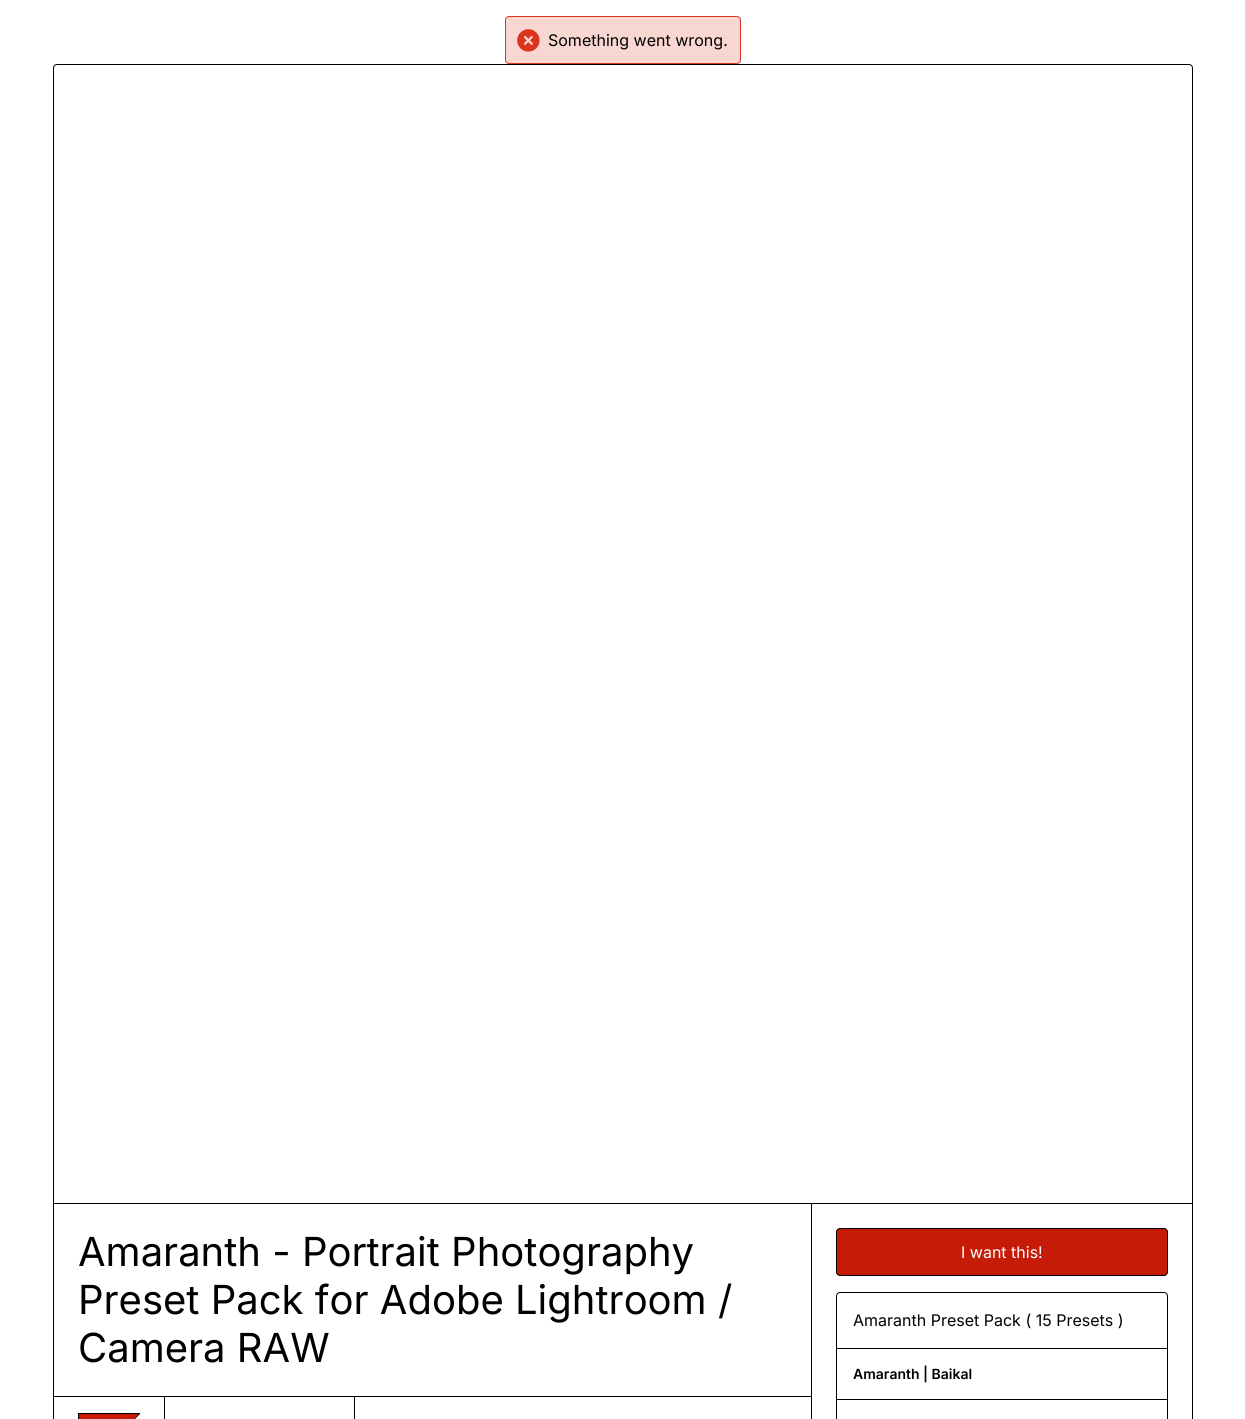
#include <cairo.h>
#include <math.h>
#include <stddef.h>

static cairo_t *ctx;

static void use_color(int r, int g, int b) {
    cairo_set_source_rgb(ctx, r / 255.0, g / 255.0, b / 255.0);
}

static void round_rect(double x, double y, double w, double h, double r) {
    cairo_new_sub_path(ctx);
    cairo_arc(ctx, x + w - r, y + h - r, r, 0, M_PI / 2);
    cairo_arc(ctx, x + r, y + h - r, r, M_PI / 2, M_PI);
    cairo_arc(ctx, x + r, y + r, r, M_PI, 1.5 * M_PI);
    cairo_arc(ctx, x + w - r, y + r, r, 1.5 * M_PI, 2 * M_PI);
    cairo_close_path(ctx);
}

static void picture(const char *path, double x, double y, double w, double h) {
    cairo_surface_t *image = cairo_image_surface_create_from_png(path);
    cairo_save(ctx);
    cairo_set_source_surface(ctx, image, x, y);
    cairo_rectangle(ctx, x, y, w, h);
    cairo_fill(ctx);
    cairo_restore(ctx);
    cairo_surface_destroy(image);
}

int main(void) {
    cairo_surface_t *surface = cairo_image_surface_create(CAIRO_FORMAT_RGB24, 1245, 1419);
    ctx = cairo_create(surface);
    cairo_font_options_t *options = cairo_font_options_create();
    cairo_font_options_set_hint_metrics(options, CAIRO_HINT_METRICS_OFF);
    cairo_font_options_set_hint_style(options, CAIRO_HINT_STYLE_NONE);
    cairo_set_font_options(ctx, options);
    cairo_set_miter_limit(ctx, 4);
    use_color(255, 255, 255);
    cairo_paint(ctx);
    use_color(248, 214, 210);
    round_rect(505.5, 16.5, 235, 47, 3.5);
    cairo_fill_preserve(ctx);
    use_color(220, 52, 30);
    cairo_set_line_width(ctx, 1);
    cairo_stroke(ctx);
    picture("img1.png", 517, 29, 23, 23);
    cairo_select_font_face(ctx, "Inter", CAIRO_FONT_SLANT_NORMAL, CAIRO_FONT_WEIGHT_NORMAL);
    cairo_set_font_size(ctx, 16);
    use_color(0, 0, 0);
    cairo_move_to(ctx, 548, 46);
    cairo_show_text(ctx, "Something went wrong.");
    round_rect(53.5, 64.5, 1139, 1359, 3.5);
    cairo_stroke(ctx);
    cairo_rectangle(ctx, 54, 1203, 1138, 1);
    cairo_fill(ctx);
    cairo_rectangle(ctx, 811, 1204, 1, 215);
    cairo_fill(ctx);
    cairo_set_font_size(ctx, 40);
    cairo_move_to(ctx, 78, 1266);
    cairo_show_text(ctx, "Amaranth - Portrait Photography");
    cairo_move_to(ctx, 78, 1314);
    cairo_show_text(ctx, "Preset Pack for Adobe Lightroom /");
    cairo_move_to(ctx, 78, 1362);
    cairo_show_text(ctx, "Camera RAW");
    cairo_rectangle(ctx, 355, 1396, 456, 1);
    cairo_fill(ctx);
    cairo_rectangle(ctx, 53.5, 1396.5, 111, 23);
    cairo_stroke(ctx);
    cairo_rectangle(ctx, 78, 1413, 62, 1);
    cairo_fill(ctx);
    cairo_rectangle(ctx, 78, 1413, 1, 6);
    cairo_fill(ctx);
    use_color(197, 27, 7);
    cairo_rectangle(ctx, 79, 1414, 45, 5);
    cairo_fill(ctx);
    use_color(0, 0, 0);
    cairo_new_path(ctx);
    cairo_move_to(ctx, 124, 1414);
    cairo_line_to(ctx, 140, 1414);
    cairo_line_to(ctx, 125, 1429);
    cairo_close_path(ctx);
    cairo_fill(ctx);
    use_color(197, 27, 7);
    cairo_new_path(ctx);
    cairo_move_to(ctx, 123, 1414);
    cairo_line_to(ctx, 139, 1414);
    cairo_line_to(ctx, 124, 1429);
    cairo_close_path(ctx);
    cairo_fill(ctx);
    cairo_rectangle(ctx, 164.5, 1396.5, 190, 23);
    use_color(0, 0, 0);
    cairo_stroke(ctx);
    use_color(197, 27, 7);
    round_rect(836.5, 1228.5, 331, 47, 3.5);
    cairo_fill_preserve(ctx);
    use_color(0, 0, 0);
    cairo_stroke(ctx);
    cairo_set_font_size(ctx, 16);
    use_color(255, 255, 255);
    cairo_move_to(ctx, 961, 1258);
    cairo_show_text(ctx, "I want this!");
    round_rect(836.5, 1292.5, 331, 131, 3.5);
    use_color(0, 0, 0);
    cairo_stroke(ctx);
    cairo_move_to(ctx, 853, 1326);
    cairo_show_text(ctx, "Amaranth Preset Pack ( 15 Presets )");
    cairo_rectangle(ctx, 837, 1348, 330, 1);
    cairo_fill(ctx);
    cairo_select_font_face(ctx, "Inter SemiBold", CAIRO_FONT_SLANT_NORMAL, CAIRO_FONT_WEIGHT_NORMAL);
    cairo_set_font_size(ctx, 14);
    cairo_move_to(ctx, 853, 1379);
    cairo_show_text(ctx, "Amaranth | Baikal");
    cairo_rectangle(ctx, 837, 1399, 330, 1);
    cairo_fill(ctx);
    cairo_surface_write_to_png(surface, "result.png");
    cairo_font_options_destroy(options);
    cairo_destroy(ctx);
    cairo_surface_destroy(surface);
    return 0;
}
